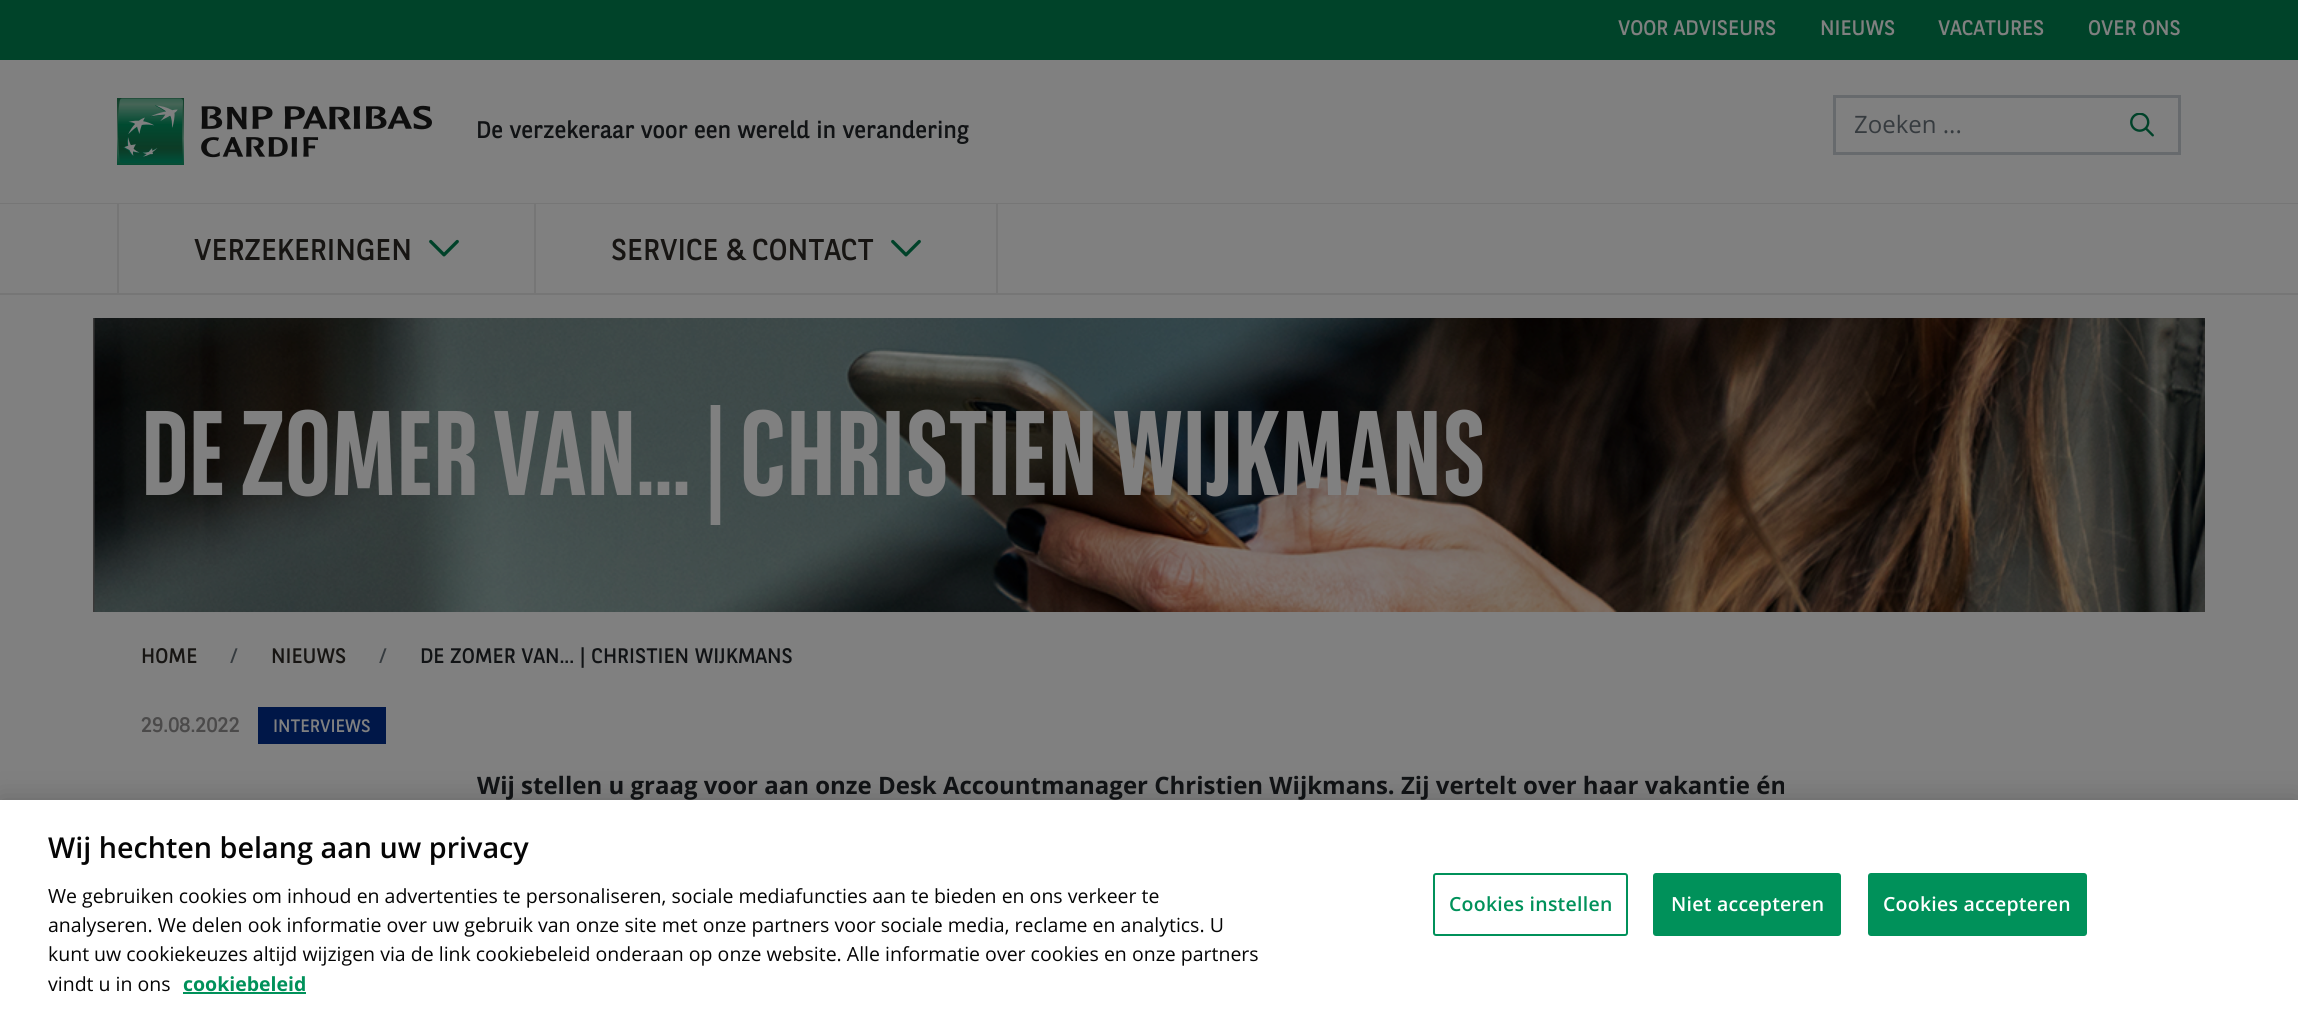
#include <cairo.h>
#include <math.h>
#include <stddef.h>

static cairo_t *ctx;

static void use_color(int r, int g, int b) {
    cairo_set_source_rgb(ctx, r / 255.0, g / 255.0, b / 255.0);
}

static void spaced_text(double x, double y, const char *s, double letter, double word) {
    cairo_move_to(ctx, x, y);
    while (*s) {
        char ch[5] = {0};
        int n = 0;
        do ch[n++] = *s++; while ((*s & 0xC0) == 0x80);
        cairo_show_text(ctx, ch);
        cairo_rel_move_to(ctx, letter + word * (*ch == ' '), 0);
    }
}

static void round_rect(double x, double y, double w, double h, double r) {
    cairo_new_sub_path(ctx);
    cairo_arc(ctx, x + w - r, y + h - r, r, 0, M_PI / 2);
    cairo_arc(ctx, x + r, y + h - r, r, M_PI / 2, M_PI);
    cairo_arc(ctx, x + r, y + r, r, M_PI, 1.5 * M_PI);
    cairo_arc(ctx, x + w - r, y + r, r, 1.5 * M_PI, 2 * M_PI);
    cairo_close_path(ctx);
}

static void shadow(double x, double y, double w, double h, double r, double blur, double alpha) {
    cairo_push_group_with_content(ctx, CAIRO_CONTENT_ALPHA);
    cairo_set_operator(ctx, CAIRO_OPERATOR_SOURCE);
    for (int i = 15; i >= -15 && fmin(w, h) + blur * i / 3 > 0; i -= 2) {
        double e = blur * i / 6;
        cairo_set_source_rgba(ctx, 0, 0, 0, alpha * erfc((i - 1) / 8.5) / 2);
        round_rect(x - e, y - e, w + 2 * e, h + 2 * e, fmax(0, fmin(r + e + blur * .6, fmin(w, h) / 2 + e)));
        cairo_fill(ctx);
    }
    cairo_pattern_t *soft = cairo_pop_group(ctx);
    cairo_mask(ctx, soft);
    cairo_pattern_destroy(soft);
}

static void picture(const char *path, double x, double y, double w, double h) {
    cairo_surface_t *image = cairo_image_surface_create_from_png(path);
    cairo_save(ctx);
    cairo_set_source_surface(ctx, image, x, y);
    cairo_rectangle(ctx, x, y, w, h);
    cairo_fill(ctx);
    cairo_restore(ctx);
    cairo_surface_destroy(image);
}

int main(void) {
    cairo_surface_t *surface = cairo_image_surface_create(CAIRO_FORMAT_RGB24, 2298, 1013);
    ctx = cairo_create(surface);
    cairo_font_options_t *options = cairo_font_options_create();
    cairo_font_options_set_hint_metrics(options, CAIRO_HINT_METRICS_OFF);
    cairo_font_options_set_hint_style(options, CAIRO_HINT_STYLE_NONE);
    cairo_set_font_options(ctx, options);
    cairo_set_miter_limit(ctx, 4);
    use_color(128, 128, 128);
    cairo_paint(ctx);
    use_color(0, 67, 41);
    cairo_rectangle(ctx, 0, 0, 2298, 60);
    cairo_fill(ctx);
    cairo_select_font_face(ctx, "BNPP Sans", CAIRO_FONT_SLANT_NORMAL, CAIRO_FONT_WEIGHT_NORMAL);
    cairo_set_font_size(ctx, 21);
    use_color(128, 128, 128);
    cairo_move_to(ctx, 1618, 35);
    cairo_show_text(ctx, "VOOR ADVISEURS");
    cairo_move_to(ctx, 1820, 35);
    cairo_show_text(ctx, "NIEUWS");
    cairo_move_to(ctx, 1938, 35);
    cairo_show_text(ctx, "VACATURES");
    cairo_move_to(ctx, 2088, 35);
    cairo_show_text(ctx, "OVER ONS");
    picture("img1.png", 117, 98, 315, 67);
    cairo_set_font_size(ctx, 24);
    use_color(17, 19, 21);
    cairo_move_to(ctx, 476, 138);
    cairo_show_text(ctx, "De verzekeraar voor een wereld in verandering");
    use_color(103, 106, 109);
    cairo_rectangle(ctx, 1833, 95, 348, 3);
    cairo_fill(ctx);
    cairo_rectangle(ctx, 1833, 152, 273, 3);
    cairo_fill(ctx);
    cairo_rectangle(ctx, 1833, 95, 3, 60);
    cairo_fill(ctx);
    cairo_select_font_face(ctx, "Open Sans", CAIRO_FONT_SLANT_NORMAL, CAIRO_FONT_WEIGHT_NORMAL);
    use_color(54, 59, 63);
    cairo_move_to(ctx, 1854, 133);
    cairo_show_text(ctx, "Zoeken ...");
    use_color(103, 106, 109);
    cairo_rectangle(ctx, 2178, 95, 3, 60);
    cairo_fill(ctx);
    cairo_rectangle(ctx, 2106, 152, 75, 3);
    cairo_fill(ctx);
    picture("img2.png", 2130, 113, 24, 24);
    use_color(118, 118, 118);
    cairo_rectangle(ctx, 0, 203, 2298, 1);
    cairo_fill(ctx);
    cairo_rectangle(ctx, 0, 293, 2298, 2);
    cairo_fill(ctx);
    cairo_rectangle(ctx, 534, 204, 2, 89);
    cairo_fill(ctx);
    cairo_rectangle(ctx, 117, 204, 2, 89);
    cairo_fill(ctx);
    cairo_select_font_face(ctx, "BNPP Sans", CAIRO_FONT_SLANT_NORMAL, CAIRO_FONT_WEIGHT_NORMAL);
    cairo_set_font_size(ctx, 30);
    use_color(23, 21, 19);
    cairo_move_to(ctx, 194, 260);
    cairo_show_text(ctx, "VERZEKERINGEN");
    picture("img3.png", 429, 239, 30, 18);
    use_color(118, 118, 118);
    cairo_rectangle(ctx, 996, 204, 2, 89);
    cairo_fill(ctx);
    use_color(23, 21, 19);
    cairo_move_to(ctx, 611, 260);
    cairo_show_text(ctx, "SERVICE & CONTACT");
    picture("img3.png", 891, 239, 30, 18);
    picture("img4.png", 93, 318, 2112, 294);
    cairo_select_font_face(ctx, "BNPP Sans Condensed", CAIRO_FONT_SLANT_NORMAL, CAIRO_FONT_WEIGHT_BOLD);
    cairo_set_font_size(ctx, 120);
    use_color(128, 128, 128);
    cairo_move_to(ctx, 141, 495);
    cairo_show_text(ctx, "DE ZOMER VAN... | CHRISTIEN WIJKMANS");
    cairo_select_font_face(ctx, "BNPP Sans", CAIRO_FONT_SLANT_NORMAL, CAIRO_FONT_WEIGHT_NORMAL);
    cairo_set_font_size(ctx, 21);
    use_color(23, 21, 19);
    cairo_move_to(ctx, 141, 663);
    cairo_show_text(ctx, "HOME");
    use_color(54, 59, 63);
    cairo_move_to(ctx, 230, 663);
    cairo_show_text(ctx, "/");
    use_color(23, 21, 19);
    cairo_move_to(ctx, 271, 663);
    cairo_show_text(ctx, "NIEUWS");
    use_color(54, 59, 63);
    cairo_move_to(ctx, 379, 663);
    cairo_show_text(ctx, "/");
    use_color(17, 19, 21);
    cairo_move_to(ctx, 420, 663);
    cairo_show_text(ctx, "DE ZOMER VAN... | CHRISTIEN WIJKMANS");
    use_color(75, 74, 74);
    cairo_move_to(ctx, 141, 732);
    cairo_show_text(ctx, "29.08.2022");
    use_color(0, 23, 72);
    cairo_rectangle(ctx, 258, 707, 128, 37);
    cairo_fill(ctx);
    cairo_set_font_size(ctx, 18);
    use_color(128, 128, 128);
    cairo_move_to(ctx, 273, 732);
    cairo_show_text(ctx, "INTERVIEWS");
    cairo_select_font_face(ctx, "Open Sans", CAIRO_FONT_SLANT_NORMAL, CAIRO_FONT_WEIGHT_BOLD);
    cairo_set_font_size(ctx, 24);
    use_color(17, 19, 21);
    cairo_move_to(ctx, 477, 794);
    cairo_show_text(ctx, "Wij stellen u graag voor aan onze Desk Accountmanager Christien Wijkmans. Zij vertelt over haar vakantie én");
    use_color(0, 0, 0);
    shadow(0, 800, 2298, 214, 0, 13.5, 0.2);
    use_color(255, 255, 255);
    cairo_rectangle(ctx, 0, 800, 2298, 213);
    cairo_fill(ctx);
    cairo_select_font_face(ctx, "Open Sans SemiBold", CAIRO_FONT_SLANT_NORMAL, CAIRO_FONT_WEIGHT_NORMAL);
    cairo_set_font_size(ctx, 28.75);
    use_color(5, 5, 5);
    cairo_move_to(ctx, 48, 858);
    cairo_show_text(ctx, "Wij hechten belang aan uw privacy");
    cairo_select_font_face(ctx, "Open Sans", CAIRO_FONT_SLANT_NORMAL, CAIRO_FONT_WEIGHT_NORMAL);
    cairo_set_font_size(ctx, 19.5);
    cairo_move_to(ctx, 48, 903);
    cairo_show_text(ctx, "We gebruiken cookies om inhoud en advertenties te personaliseren, sociale mediafuncties aan te bieden en ons verkeer te");
    cairo_move_to(ctx, 48, 932);
    cairo_show_text(ctx, "analyseren. We delen ook informatie over uw gebruik van onze site met onze partners voor sociale media, reclame en analytics. U");
    cairo_move_to(ctx, 48, 961);
    cairo_show_text(ctx, "kunt uw cookiekeuzes altijd wijzigen via de link cookiebeleid onderaan op onze website. Alle informatie over cookies en onze partners");
    cairo_move_to(ctx, 48, 991);
    cairo_show_text(ctx, "vindt u in ons");
    cairo_select_font_face(ctx, "Open Sans", CAIRO_FONT_SLANT_NORMAL, CAIRO_FONT_WEIGHT_BOLD);
    use_color(0, 145, 90);
    cairo_move_to(ctx, 183, 991);
    cairo_show_text(ctx, "cookiebeleid");
    cairo_rectangle(ctx, 183, 992, 123, 2);
    cairo_fill(ctx);
    round_rect(1434, 874, 193, 61, 2);
    cairo_stroke(ctx);
    cairo_select_font_face(ctx, "Open Sans SemiBold", CAIRO_FONT_SLANT_NORMAL, CAIRO_FONT_WEIGHT_NORMAL);
    spaced_text(1449, 911, "Cookies instellen", 0.25, 0);
    round_rect(1654, 874, 186, 61, 2);
    cairo_fill_preserve(ctx);
    cairo_stroke(ctx);
    use_color(255, 255, 255);
    spaced_text(1671, 911, "Niet accepteren", 0.25, 0);
    use_color(0, 145, 90);
    round_rect(1869, 874, 217, 61, 2);
    cairo_fill_preserve(ctx);
    cairo_stroke(ctx);
    use_color(255, 255, 255);
    spaced_text(1883, 911, "Cookies accepteren", 0.25, 0);
    cairo_surface_write_to_png(surface, "result.png");
    cairo_font_options_destroy(options);
    cairo_destroy(ctx);
    cairo_surface_destroy(surface);
    return 0;
}
